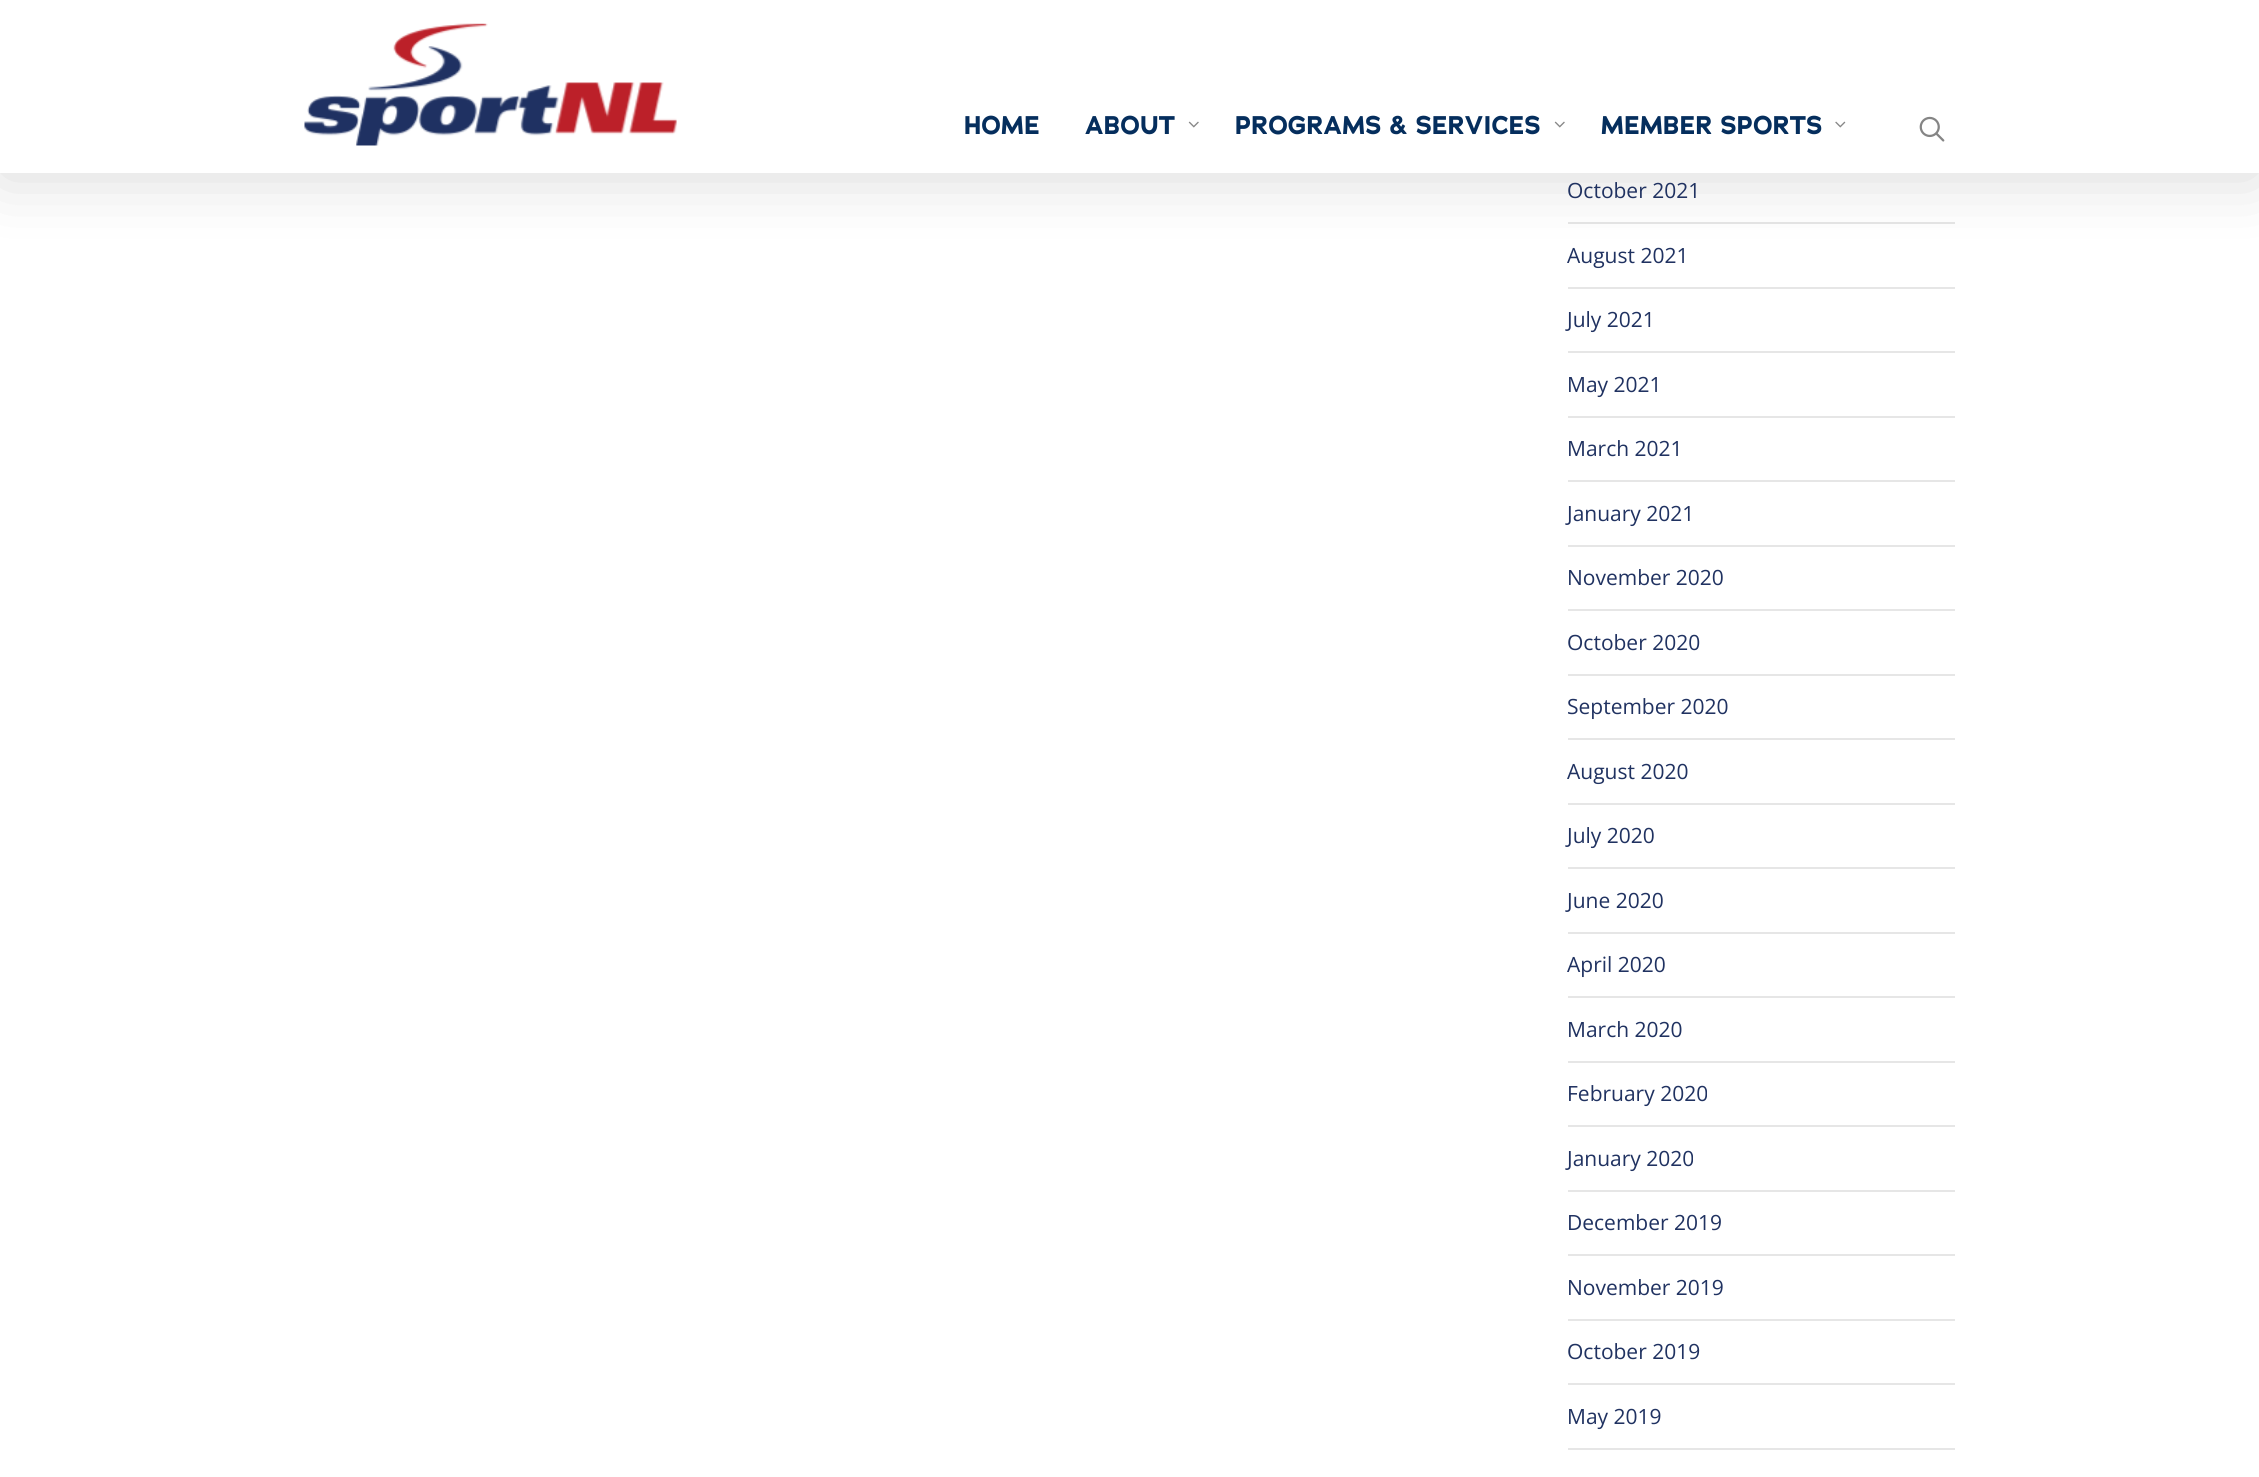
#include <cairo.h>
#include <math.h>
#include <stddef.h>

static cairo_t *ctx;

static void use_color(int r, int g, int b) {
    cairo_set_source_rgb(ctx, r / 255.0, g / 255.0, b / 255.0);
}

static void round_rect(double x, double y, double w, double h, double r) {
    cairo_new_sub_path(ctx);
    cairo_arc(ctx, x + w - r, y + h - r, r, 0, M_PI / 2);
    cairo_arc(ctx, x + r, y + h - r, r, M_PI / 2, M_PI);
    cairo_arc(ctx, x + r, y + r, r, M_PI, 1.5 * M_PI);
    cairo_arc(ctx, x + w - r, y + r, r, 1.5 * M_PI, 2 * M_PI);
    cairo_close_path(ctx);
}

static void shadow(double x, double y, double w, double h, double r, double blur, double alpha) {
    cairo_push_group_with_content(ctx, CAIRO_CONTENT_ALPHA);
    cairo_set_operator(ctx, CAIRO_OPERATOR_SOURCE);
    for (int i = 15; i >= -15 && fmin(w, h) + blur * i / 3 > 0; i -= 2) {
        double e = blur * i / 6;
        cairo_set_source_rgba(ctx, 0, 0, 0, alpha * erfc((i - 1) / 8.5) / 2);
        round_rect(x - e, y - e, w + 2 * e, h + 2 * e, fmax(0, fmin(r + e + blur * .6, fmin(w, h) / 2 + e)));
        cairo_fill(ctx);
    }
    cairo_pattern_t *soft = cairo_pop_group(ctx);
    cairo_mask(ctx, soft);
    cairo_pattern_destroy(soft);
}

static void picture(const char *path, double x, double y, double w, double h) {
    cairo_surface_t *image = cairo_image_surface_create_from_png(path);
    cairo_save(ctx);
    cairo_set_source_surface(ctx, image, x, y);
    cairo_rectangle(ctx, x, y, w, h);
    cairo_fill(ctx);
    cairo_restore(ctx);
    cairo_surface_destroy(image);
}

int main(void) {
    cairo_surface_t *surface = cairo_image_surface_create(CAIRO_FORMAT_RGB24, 2259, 1477);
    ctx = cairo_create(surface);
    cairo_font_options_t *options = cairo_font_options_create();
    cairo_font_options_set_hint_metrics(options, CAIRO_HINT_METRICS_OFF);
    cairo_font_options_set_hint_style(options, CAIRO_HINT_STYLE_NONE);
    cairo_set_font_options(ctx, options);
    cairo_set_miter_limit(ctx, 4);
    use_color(255, 255, 255);
    cairo_paint(ctx);
    use_color(230, 230, 230);
    cairo_rectangle(ctx, 1568, 222, 387, 2);
    cairo_fill(ctx);
    use_color(0, 0, 0);
    shadow(0, 5, 2259, 172, 0, 34, 0.15);
    use_color(255, 255, 255);
    cairo_rectangle(ctx, 0, 0, 2259, 173);
    cairo_fill(ctx);
    picture("img1.png", 304, 23, 373, 123);
    cairo_select_font_face(ctx, "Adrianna", CAIRO_FONT_SLANT_NORMAL, CAIRO_FONT_WEIGHT_BOLD);
    cairo_set_font_size(ctx, 25.5);
    use_color(5, 46, 93);
    cairo_move_to(ctx, 964, 134);
    cairo_show_text(ctx, "HOME");
    cairo_move_to(ctx, 1085, 134);
    cairo_show_text(ctx, "ABOUT");
    picture("img2.png", 1188, 121, 11, 7);
    cairo_move_to(ctx, 1235, 134);
    cairo_show_text(ctx, "PROGRAMS & SERVICES");
    picture("img2.png", 1554, 121, 11, 7);
    cairo_move_to(ctx, 1601, 134);
    cairo_show_text(ctx, "MEMBER SPORTS");
    picture("img3.png", 1835, 121, 11, 7);
    picture("img4.png", 1919, 116, 26, 26);
    cairo_select_font_face(ctx, "Open Sans", CAIRO_FONT_SLANT_NORMAL, CAIRO_FONT_WEIGHT_NORMAL);
    cairo_set_font_size(ctx, 21);
    use_color(32, 50, 97);
    cairo_move_to(ctx, 1567, 198);
    cairo_show_text(ctx, "October 2021");
    use_color(230, 230, 230);
    cairo_rectangle(ctx, 1568, 287, 387, 2);
    cairo_fill(ctx);
    use_color(32, 50, 97);
    cairo_move_to(ctx, 1567, 263);
    cairo_show_text(ctx, "August 2021");
    use_color(230, 230, 230);
    cairo_rectangle(ctx, 1568, 351, 387, 2);
    cairo_fill(ctx);
    use_color(32, 50, 97);
    cairo_move_to(ctx, 1567, 327);
    cairo_show_text(ctx, "July 2021");
    use_color(230, 230, 230);
    cairo_rectangle(ctx, 1568, 416, 387, 2);
    cairo_fill(ctx);
    use_color(32, 50, 97);
    cairo_move_to(ctx, 1567, 392);
    cairo_show_text(ctx, "May 2021");
    use_color(230, 230, 230);
    cairo_rectangle(ctx, 1568, 480, 387, 2);
    cairo_fill(ctx);
    use_color(32, 50, 97);
    cairo_move_to(ctx, 1567, 456);
    cairo_show_text(ctx, "March 2021");
    use_color(230, 230, 230);
    cairo_rectangle(ctx, 1568, 545, 387, 2);
    cairo_fill(ctx);
    use_color(32, 50, 97);
    cairo_move_to(ctx, 1567, 521);
    cairo_show_text(ctx, "January 2021");
    use_color(230, 230, 230);
    cairo_rectangle(ctx, 1568, 609, 387, 2);
    cairo_fill(ctx);
    use_color(32, 50, 97);
    cairo_move_to(ctx, 1567, 585);
    cairo_show_text(ctx, "November 2020");
    use_color(230, 230, 230);
    cairo_rectangle(ctx, 1568, 674, 387, 2);
    cairo_fill(ctx);
    use_color(32, 50, 97);
    cairo_move_to(ctx, 1567, 650);
    cairo_show_text(ctx, "October 2020");
    use_color(230, 230, 230);
    cairo_rectangle(ctx, 1568, 738, 387, 2);
    cairo_fill(ctx);
    use_color(32, 50, 97);
    cairo_move_to(ctx, 1567, 714);
    cairo_show_text(ctx, "September 2020");
    use_color(230, 230, 230);
    cairo_rectangle(ctx, 1568, 803, 387, 2);
    cairo_fill(ctx);
    use_color(32, 50, 97);
    cairo_move_to(ctx, 1567, 779);
    cairo_show_text(ctx, "August 2020");
    use_color(230, 230, 230);
    cairo_rectangle(ctx, 1568, 867, 387, 2);
    cairo_fill(ctx);
    use_color(32, 50, 97);
    cairo_move_to(ctx, 1567, 843);
    cairo_show_text(ctx, "July 2020");
    use_color(230, 230, 230);
    cairo_rectangle(ctx, 1568, 932, 387, 2);
    cairo_fill(ctx);
    use_color(32, 50, 97);
    cairo_move_to(ctx, 1567, 908);
    cairo_show_text(ctx, "June 2020");
    use_color(230, 230, 230);
    cairo_rectangle(ctx, 1568, 996, 387, 2);
    cairo_fill(ctx);
    use_color(32, 50, 97);
    cairo_move_to(ctx, 1567, 972);
    cairo_show_text(ctx, "April 2020");
    use_color(230, 230, 230);
    cairo_rectangle(ctx, 1568, 1061, 387, 2);
    cairo_fill(ctx);
    use_color(32, 50, 97);
    cairo_move_to(ctx, 1567, 1037);
    cairo_show_text(ctx, "March 2020");
    use_color(230, 230, 230);
    cairo_rectangle(ctx, 1568, 1125, 387, 2);
    cairo_fill(ctx);
    use_color(32, 50, 97);
    cairo_move_to(ctx, 1567, 1101);
    cairo_show_text(ctx, "February 2020");
    use_color(230, 230, 230);
    cairo_rectangle(ctx, 1568, 1190, 387, 2);
    cairo_fill(ctx);
    use_color(32, 50, 97);
    cairo_move_to(ctx, 1567, 1166);
    cairo_show_text(ctx, "January 2020");
    use_color(230, 230, 230);
    cairo_rectangle(ctx, 1568, 1254, 387, 2);
    cairo_fill(ctx);
    use_color(32, 50, 97);
    cairo_move_to(ctx, 1567, 1230);
    cairo_show_text(ctx, "December 2019");
    use_color(230, 230, 230);
    cairo_rectangle(ctx, 1568, 1319, 387, 2);
    cairo_fill(ctx);
    use_color(32, 50, 97);
    cairo_move_to(ctx, 1567, 1295);
    cairo_show_text(ctx, "November 2019");
    use_color(230, 230, 230);
    cairo_rectangle(ctx, 1568, 1383, 387, 2);
    cairo_fill(ctx);
    use_color(32, 50, 97);
    cairo_move_to(ctx, 1567, 1359);
    cairo_show_text(ctx, "October 2019");
    use_color(230, 230, 230);
    cairo_rectangle(ctx, 1568, 1448, 387, 2);
    cairo_fill(ctx);
    use_color(32, 50, 97);
    cairo_move_to(ctx, 1567, 1424);
    cairo_show_text(ctx, "May 2019");
    cairo_surface_write_to_png(surface, "result.png");
    cairo_font_options_destroy(options);
    cairo_destroy(ctx);
    cairo_surface_destroy(surface);
    return 0;
}
